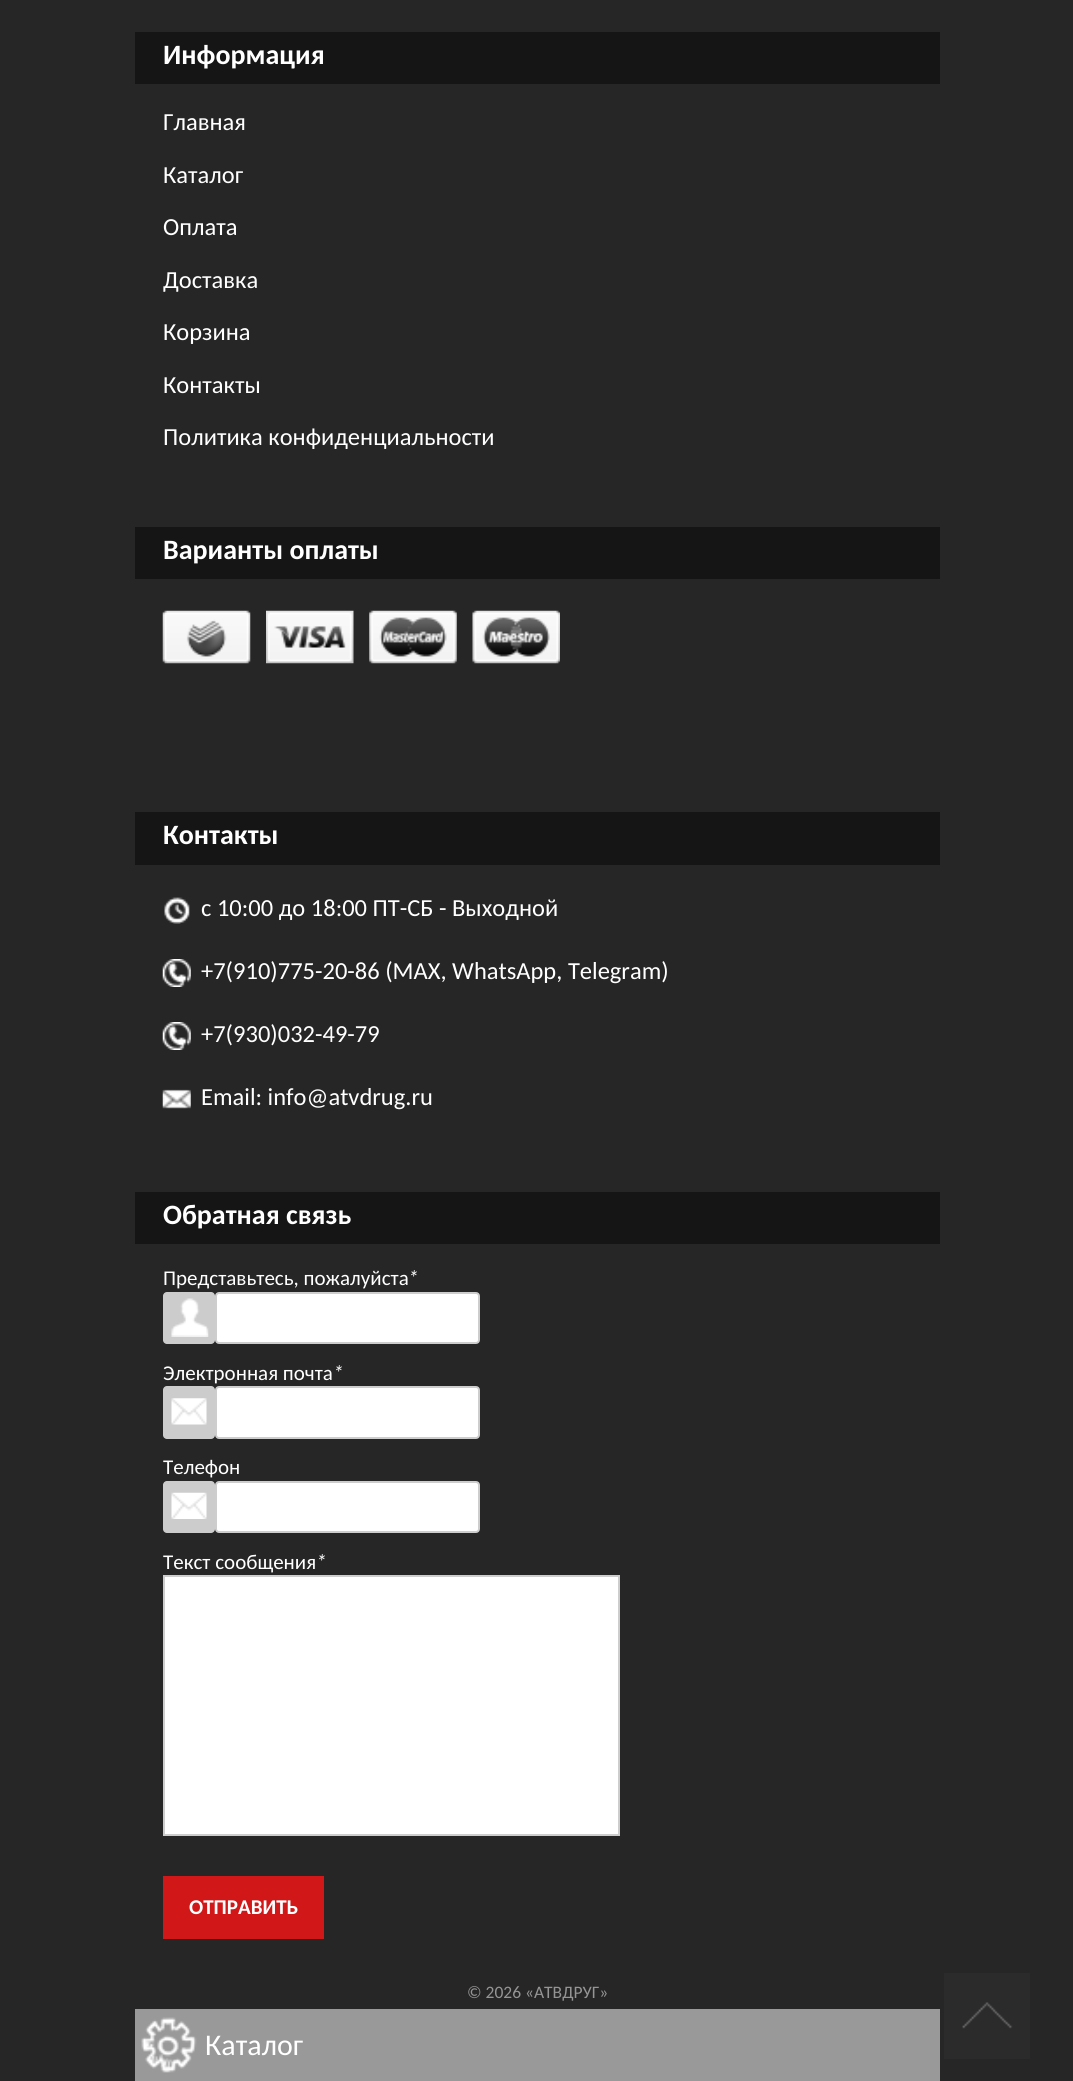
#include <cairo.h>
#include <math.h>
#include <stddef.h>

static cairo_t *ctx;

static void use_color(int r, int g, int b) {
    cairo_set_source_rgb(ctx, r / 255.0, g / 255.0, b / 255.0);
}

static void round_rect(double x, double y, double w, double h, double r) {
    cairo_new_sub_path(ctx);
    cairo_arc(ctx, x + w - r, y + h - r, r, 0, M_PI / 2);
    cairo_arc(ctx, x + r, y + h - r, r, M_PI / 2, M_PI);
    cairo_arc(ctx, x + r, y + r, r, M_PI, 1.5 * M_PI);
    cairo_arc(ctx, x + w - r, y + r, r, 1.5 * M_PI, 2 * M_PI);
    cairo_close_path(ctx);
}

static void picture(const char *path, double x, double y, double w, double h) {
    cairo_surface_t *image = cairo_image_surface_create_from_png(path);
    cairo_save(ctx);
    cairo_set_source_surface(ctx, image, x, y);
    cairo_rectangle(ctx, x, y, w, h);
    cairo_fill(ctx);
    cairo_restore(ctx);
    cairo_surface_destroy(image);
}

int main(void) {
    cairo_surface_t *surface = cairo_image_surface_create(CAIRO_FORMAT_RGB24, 1073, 2081);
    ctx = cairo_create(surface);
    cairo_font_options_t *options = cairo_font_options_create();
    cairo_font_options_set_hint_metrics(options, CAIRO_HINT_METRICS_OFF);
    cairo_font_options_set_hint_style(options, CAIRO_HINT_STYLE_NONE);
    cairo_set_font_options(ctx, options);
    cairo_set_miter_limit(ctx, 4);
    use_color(38, 38, 38);
    cairo_paint(ctx);
    use_color(21, 21, 21);
    cairo_rectangle(ctx, 135, 32, 805, 52);
    cairo_fill(ctx);
    cairo_select_font_face(ctx, "Carlito", CAIRO_FONT_SLANT_NORMAL, CAIRO_FONT_WEIGHT_BOLD);
    cairo_set_font_size(ctx, 28);
    use_color(255, 255, 255);
    cairo_move_to(ctx, 163, 64);
    cairo_show_text(ctx, "Информация");
    cairo_select_font_face(ctx, "Carlito", CAIRO_FONT_SLANT_NORMAL, CAIRO_FONT_WEIGHT_NORMAL);
    cairo_set_font_size(ctx, 24.5);
    cairo_move_to(ctx, 163, 130);
    cairo_show_text(ctx, "Главная");
    cairo_move_to(ctx, 163, 183);
    cairo_show_text(ctx, "Каталог");
    cairo_move_to(ctx, 163, 235);
    cairo_show_text(ctx, "Оплата");
    cairo_move_to(ctx, 163, 288);
    cairo_show_text(ctx, "Доставка");
    cairo_move_to(ctx, 163, 340);
    cairo_show_text(ctx, "Корзина");
    cairo_move_to(ctx, 163, 393);
    cairo_show_text(ctx, "Контакты");
    cairo_move_to(ctx, 163, 445);
    cairo_show_text(ctx, "Политика конфиденциальности");
    use_color(21, 21, 21);
    cairo_rectangle(ctx, 135, 527, 805, 52);
    cairo_fill(ctx);
    cairo_select_font_face(ctx, "Carlito", CAIRO_FONT_SLANT_NORMAL, CAIRO_FONT_WEIGHT_BOLD);
    cairo_set_font_size(ctx, 28);
    use_color(255, 255, 255);
    cairo_move_to(ctx, 163, 559);
    cairo_show_text(ctx, "Варианты оплаты");
    picture("img1.png", 162, 610, 89, 54);
    picture("img2.png", 266, 610, 88, 54);
    picture("img3.png", 369, 610, 88, 54);
    picture("img4.png", 472, 610, 88, 54);
    use_color(21, 21, 21);
    cairo_rectangle(ctx, 135, 812, 805, 53);
    cairo_fill(ctx);
    use_color(255, 255, 255);
    cairo_move_to(ctx, 163, 844);
    cairo_show_text(ctx, "Контакты");
    picture("img5.png", 164, 897, 26, 27);
    cairo_select_font_face(ctx, "Carlito", CAIRO_FONT_SLANT_NORMAL, CAIRO_FONT_WEIGHT_NORMAL);
    cairo_set_font_size(ctx, 24.5);
    cairo_move_to(ctx, 201, 916);
    cairo_show_text(ctx, "с 10:00 до 18:00 ПТ-СБ - Выходной");
    picture("img6.png", 162, 959, 29, 28);
    cairo_move_to(ctx, 201, 979);
    cairo_show_text(ctx, "+7(910)775-20-86 (MAX, WhatsApp, Telegram)");
    picture("img6.png", 162, 1022, 29, 28);
    cairo_move_to(ctx, 201, 1042);
    cairo_show_text(ctx, "+7(930)032-49-79");
    picture("img7.png", 162, 1089, 29, 20);
    cairo_move_to(ctx, 201, 1105);
    cairo_show_text(ctx, "Email: info@atvdrug.ru");
    use_color(21, 21, 21);
    cairo_rectangle(ctx, 135, 1192, 805, 52);
    cairo_fill(ctx);
    cairo_select_font_face(ctx, "Carlito", CAIRO_FONT_SLANT_NORMAL, CAIRO_FONT_WEIGHT_BOLD);
    cairo_set_font_size(ctx, 28);
    use_color(255, 255, 255);
    cairo_move_to(ctx, 163, 1224);
    cairo_show_text(ctx, "Обратная связь");
    cairo_select_font_face(ctx, "Carlito", CAIRO_FONT_SLANT_NORMAL, CAIRO_FONT_WEIGHT_NORMAL);
    cairo_set_font_size(ctx, 21);
    cairo_move_to(ctx, 163, 1285);
    cairo_show_text(ctx, "Представьтесь, пожалуйста");
    cairo_select_font_face(ctx, "Carlito", CAIRO_FONT_SLANT_ITALIC, CAIRO_FONT_WEIGHT_NORMAL);
    cairo_move_to(ctx, 408, 1285);
    cairo_show_text(ctx, "*");
    use_color(204, 204, 204);
    round_rect(163, 1292, 52, 52, 4);
    cairo_fill(ctx);
    picture("img8.png", 171, 1298, 38, 39);
    use_color(255, 255, 255);
    round_rect(216, 1293, 263, 50, 3);
    cairo_fill_preserve(ctx);
    use_color(205, 205, 205);
    cairo_stroke(ctx);
    cairo_select_font_face(ctx, "Carlito", CAIRO_FONT_SLANT_NORMAL, CAIRO_FONT_WEIGHT_NORMAL);
    use_color(255, 255, 255);
    cairo_move_to(ctx, 163, 1380);
    cairo_show_text(ctx, "Электронная почта");
    cairo_select_font_face(ctx, "Carlito", CAIRO_FONT_SLANT_ITALIC, CAIRO_FONT_WEIGHT_NORMAL);
    cairo_move_to(ctx, 333, 1380);
    cairo_show_text(ctx, "*");
    use_color(204, 204, 204);
    round_rect(163, 1386, 52, 53, 4);
    cairo_fill(ctx);
    picture("img9.png", 171, 1398, 36, 27);
    use_color(255, 255, 255);
    round_rect(216, 1387, 263, 51, 3);
    cairo_fill_preserve(ctx);
    use_color(205, 205, 205);
    cairo_stroke(ctx);
    cairo_select_font_face(ctx, "Carlito", CAIRO_FONT_SLANT_NORMAL, CAIRO_FONT_WEIGHT_NORMAL);
    use_color(255, 255, 255);
    cairo_move_to(ctx, 163, 1474);
    cairo_show_text(ctx, "Телефон");
    use_color(204, 204, 204);
    round_rect(163, 1481, 52, 52, 4);
    cairo_fill(ctx);
    picture("img10.png", 171, 1492, 36, 27);
    use_color(255, 255, 255);
    round_rect(216, 1482, 263, 50, 3);
    cairo_fill_preserve(ctx);
    use_color(205, 205, 205);
    cairo_stroke(ctx);
    use_color(255, 255, 255);
    cairo_move_to(ctx, 163, 1569);
    cairo_show_text(ctx, "Текст сообщения");
    cairo_select_font_face(ctx, "Carlito", CAIRO_FONT_SLANT_ITALIC, CAIRO_FONT_WEIGHT_NORMAL);
    cairo_move_to(ctx, 316, 1569);
    cairo_show_text(ctx, "*");
    cairo_rectangle(ctx, 164, 1576, 455, 259);
    cairo_fill_preserve(ctx);
    use_color(205, 205, 205);
    cairo_stroke(ctx);
    use_color(209, 23, 23);
    cairo_rectangle(ctx, 163, 1876, 161, 63);
    cairo_fill(ctx);
    cairo_select_font_face(ctx, "Carlito", CAIRO_FONT_SLANT_NORMAL, CAIRO_FONT_WEIGHT_BOLD);
    use_color(255, 255, 255);
    cairo_move_to(ctx, 189, 1914);
    cairo_show_text(ctx, "ОТПРАВИТЬ");
    cairo_select_font_face(ctx, "Carlito", CAIRO_FONT_SLANT_NORMAL, CAIRO_FONT_WEIGHT_NORMAL);
    cairo_set_font_size(ctx, 17.5);
    use_color(149, 149, 149);
    cairo_move_to(ctx, 467, 1998);
    cairo_show_text(ctx, "© 2026 «АТВДРУГ»");
    picture("img11.png", 944, 1973, 86, 86);
    use_color(153, 153, 153);
    cairo_rectangle(ctx, 135, 2009, 805, 72);
    cairo_fill(ctx);
    picture("img12.png", 141, 2017, 56, 56);
    cairo_set_font_size(ctx, 30);
    use_color(255, 255, 255);
    cairo_move_to(ctx, 205, 2055);
    cairo_show_text(ctx, "Каталог");
    cairo_surface_write_to_png(surface, "result.png");
    cairo_font_options_destroy(options);
    cairo_destroy(ctx);
    cairo_surface_destroy(surface);
    return 0;
}
